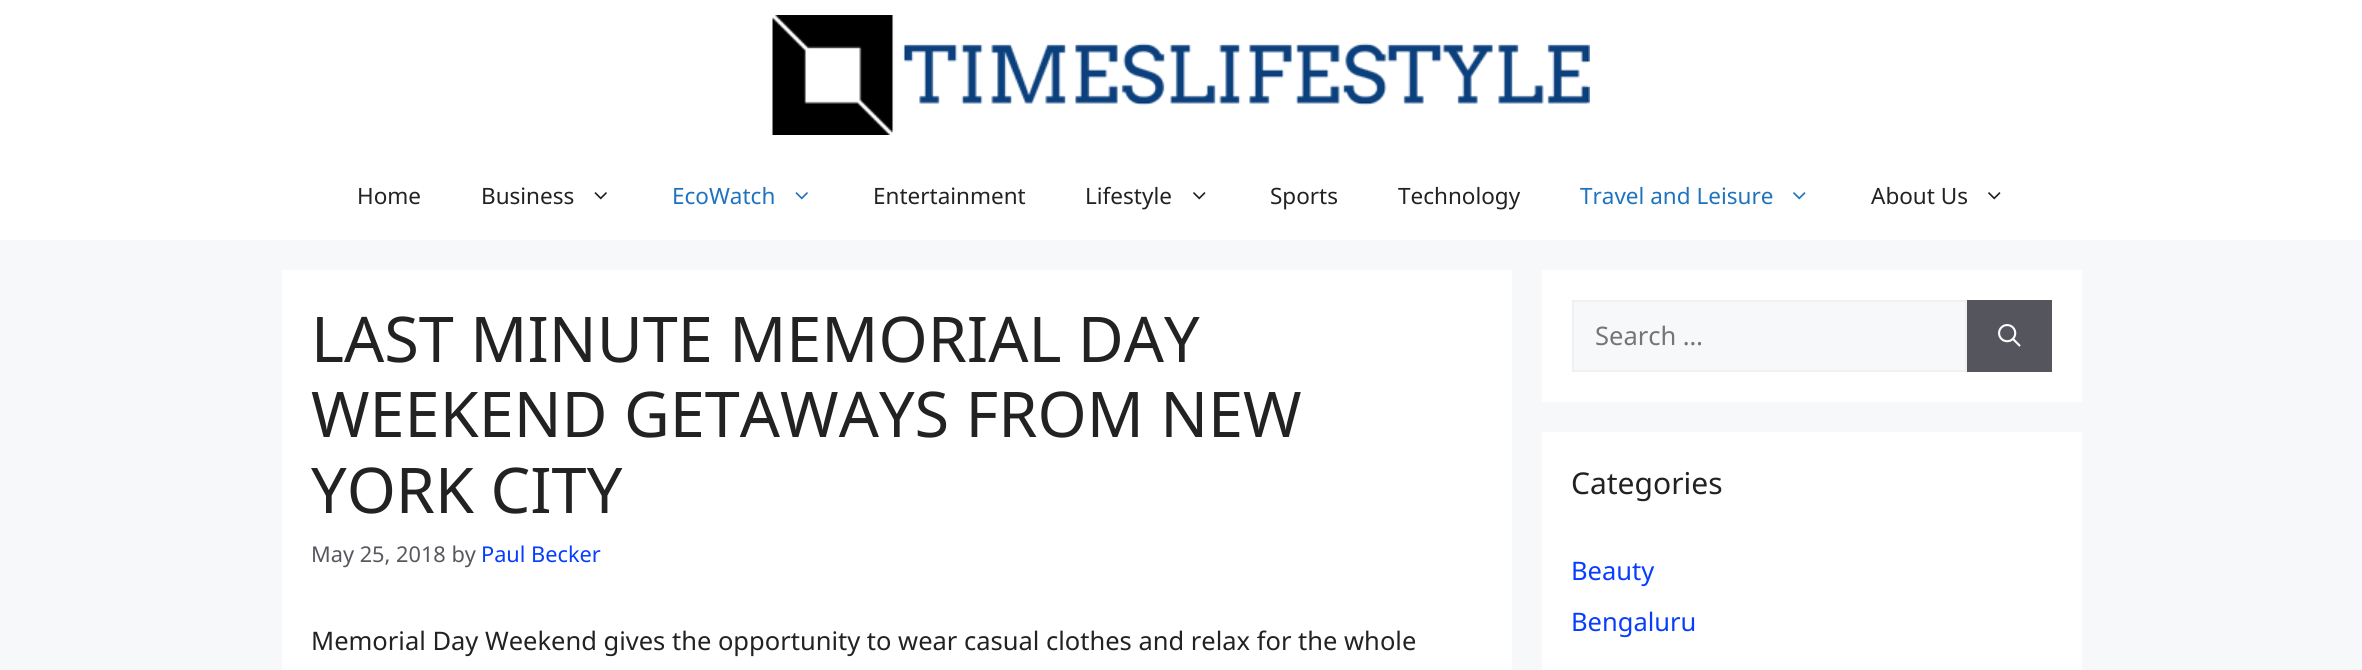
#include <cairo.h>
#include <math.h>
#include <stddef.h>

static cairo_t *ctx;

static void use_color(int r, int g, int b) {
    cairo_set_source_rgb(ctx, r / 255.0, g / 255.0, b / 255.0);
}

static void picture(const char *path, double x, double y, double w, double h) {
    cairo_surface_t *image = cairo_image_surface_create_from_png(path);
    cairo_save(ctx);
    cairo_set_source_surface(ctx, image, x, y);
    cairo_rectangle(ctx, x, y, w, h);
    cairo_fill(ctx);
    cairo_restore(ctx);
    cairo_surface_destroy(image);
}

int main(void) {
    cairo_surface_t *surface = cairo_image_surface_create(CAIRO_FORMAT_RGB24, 2362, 670);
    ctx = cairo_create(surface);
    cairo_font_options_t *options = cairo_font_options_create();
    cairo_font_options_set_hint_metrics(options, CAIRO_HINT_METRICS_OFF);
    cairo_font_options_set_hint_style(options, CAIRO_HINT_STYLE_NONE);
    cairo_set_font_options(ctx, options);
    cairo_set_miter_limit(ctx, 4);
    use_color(247, 248, 249);
    cairo_paint(ctx);
    use_color(255, 255, 255);
    cairo_rectangle(ctx, 0, 0, 2362, 240);
    cairo_fill(ctx);
    picture("img1.png", 772, 15, 818, 120);
    cairo_select_font_face(ctx, "Noto Sans", CAIRO_FONT_SLANT_NORMAL, CAIRO_FONT_WEIGHT_NORMAL);
    cairo_set_font_size(ctx, 22.5);
    use_color(34, 34, 34);
    cairo_move_to(ctx, 357, 204);
    cairo_show_text(ctx, "Home");
    cairo_move_to(ctx, 481, 204);
    cairo_show_text(ctx, "Business");
    picture("img2.png", 594, 192, 13, 8);
    use_color(30, 115, 190);
    cairo_move_to(ctx, 672, 204);
    cairo_show_text(ctx, "EcoWatch");
    picture("img3.png", 795, 192, 13, 8);
    use_color(34, 34, 34);
    cairo_move_to(ctx, 873, 204);
    cairo_show_text(ctx, "Entertainment");
    cairo_move_to(ctx, 1085, 204);
    cairo_show_text(ctx, "Lifestyle");
    picture("img4.png", 1193, 192, 13, 8);
    cairo_move_to(ctx, 1270, 204);
    cairo_show_text(ctx, "Sports");
    cairo_move_to(ctx, 1398, 204);
    cairo_show_text(ctx, "Technology");
    use_color(30, 115, 190);
    cairo_move_to(ctx, 1580, 204);
    cairo_show_text(ctx, "Travel and Leisure");
    picture("img5.png", 1793, 192, 13, 8);
    use_color(34, 34, 34);
    cairo_move_to(ctx, 1871, 204);
    cairo_show_text(ctx, "About Us");
    picture("img4.png", 1988, 192, 13, 8);
    use_color(255, 255, 255);
    cairo_rectangle(ctx, 282, 270, 1230, 400);
    cairo_fill(ctx);
    cairo_set_font_size(ctx, 63);
    use_color(34, 34, 34);
    cairo_move_to(ctx, 311, 362);
    cairo_show_text(ctx, "LAST MINUTE MEMORIAL DAY");
    cairo_move_to(ctx, 311, 437);
    cairo_show_text(ctx, "WEEKEND GETAWAYS FROM NEW");
    cairo_move_to(ctx, 311, 513);
    cairo_show_text(ctx, "YORK CITY");
    cairo_set_font_size(ctx, 21.75);
    use_color(87, 87, 96);
    cairo_move_to(ctx, 311, 562);
    cairo_show_text(ctx, "May 25, 2018 by");
    use_color(7, 61, 255);
    cairo_move_to(ctx, 481, 562);
    cairo_show_text(ctx, "Paul Becker");
    cairo_set_font_size(ctx, 25.5);
    use_color(34, 34, 34);
    cairo_move_to(ctx, 311, 650);
    cairo_show_text(ctx, "Memorial Day Weekend gives the opportunity to wear casual clothes and relax for the whole");
    use_color(255, 255, 255);
    cairo_rectangle(ctx, 1542, 270, 540, 132);
    cairo_fill(ctx);
    use_color(247, 248, 249);
    cairo_rectangle(ctx, 1573, 301, 393, 70);
    cairo_fill_preserve(ctx);
    use_color(240, 240, 240);
    cairo_stroke(ctx);
    use_color(117, 117, 117);
    cairo_move_to(ctx, 1595, 345);
    cairo_show_text(ctx, "Search …");
    use_color(85, 85, 94);
    cairo_rectangle(ctx, 1967, 300, 85, 72);
    cairo_fill(ctx);
    picture("img6.png", 1998, 324, 23, 23);
    use_color(255, 255, 255);
    cairo_rectangle(ctx, 1542, 432, 540, 238);
    cairo_fill(ctx);
    cairo_set_font_size(ctx, 30);
    use_color(34, 34, 34);
    cairo_move_to(ctx, 1571, 494);
    cairo_show_text(ctx, "Categories");
    cairo_set_font_size(ctx, 25.5);
    use_color(7, 61, 255);
    cairo_move_to(ctx, 1571, 580);
    cairo_show_text(ctx, "Beauty");
    cairo_move_to(ctx, 1571, 631);
    cairo_show_text(ctx, "Bengaluru");
    cairo_surface_write_to_png(surface, "result.png");
    cairo_font_options_destroy(options);
    cairo_destroy(ctx);
    cairo_surface_destroy(surface);
    return 0;
}
